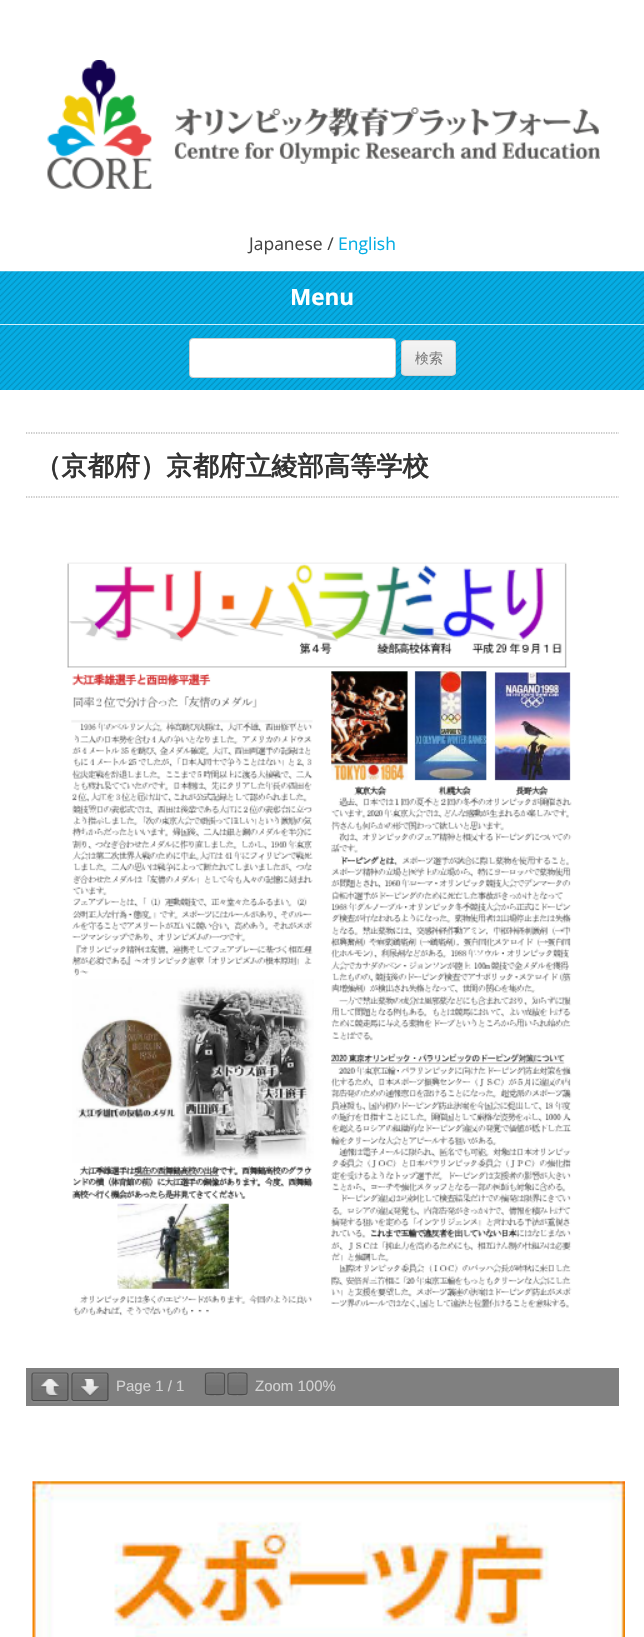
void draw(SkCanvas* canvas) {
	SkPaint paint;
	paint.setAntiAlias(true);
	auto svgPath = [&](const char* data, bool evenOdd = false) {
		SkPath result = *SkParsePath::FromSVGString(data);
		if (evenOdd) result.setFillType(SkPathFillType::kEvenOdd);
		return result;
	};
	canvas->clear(0xffffffff);
	canvas->drawImageRect(SkImages::DeferredFromEncodedData(SkData::MakeFromFileName("img1.png")), SkRect::MakeXYWH(47, 60, 553, 129), SkSamplingOptions());
	SkFont f1(fontMgr->matchFamilyStyle("Open Sans", SkFontStyle::Normal()), 17.5);
	f1.setSubpixel(true);
	paint.setColor(0xff444444);
	canvas->drawString("Japanese /", 249, 250, f1, paint);
	paint.setColor(0xff06ade4);
	canvas->drawString("English", 338, 250, f1, paint);
	canvas->drawImageRect(SkImages::DeferredFromEncodedData(SkData::MakeFromFileName("img2.png")), SkRect::MakeXYWH(0, 271, 644, 119), SkSamplingOptions());
	paint.setColor(0xffd5effa);
	canvas->drawRect(SkRect::MakeXYWH(0, 324, 644, 1), paint);
	SkFont f2(fontMgr->matchFamilyStyle("Open Sans", SkFontStyle::Bold()), 22.5);
	f2.setSubpixel(true);
	paint.setColor(0xffffffff);
	canvas->drawString("Menu", 290, 305, f2, paint);
	canvas->drawRoundRect(SkRect::MakeXYWH(189.5, 338.5, 206, 39), 3.5, 3.5, paint);
	paint.setStroke(true);
	paint.setStrokeWidth(1);
	paint.setColor(0xffcccccc);
	canvas->drawRoundRect(SkRect::MakeXYWH(189.5, 338.5, 206, 39), 3.5, 3.5, paint);
	paint.setStroke(false);
	paint.setColor(0x1a404040);
	paint.setMaskFilter(SkMaskFilter::MakeBlur(kNormal_SkBlurStyle, 1));
	canvas->drawRoundRect(SkRect::MakeXYWH(401, 341, 55, 37), 4, 4, paint);
	paint.setMaskFilter(nullptr);
	canvas->save();
	canvas->clipPath(svgPath("M405 340H452C454 340 456 342 456 344V372C456 374 454 376 452 376H405C403 376 401 374 401 372V344C401 342 403 340 405 340Z"), true);
	{
		const SkColor colors[] = {0xfff4f4f4, 0xffe6e6e6};
		const float stops[] = {0, 1};
		const SkPoint ends[] = {{429, 341}, {429, 375}};
		paint.setShader(SkGradientShader::MakeLinear(ends, colors, stops, 2, SkTileMode::kClamp));
		paint.setAlpha(255);
	}
	canvas->drawRect(SkRect::MakeXYWH(401, 341, 55, 34), paint);
	canvas->restore();
	paint.setStroke(true);
	paint.setShader(nullptr);
	paint.setColor(0xffd2d2d2);
	canvas->drawRoundRect(SkRect::MakeXYWH(401.5, 340.5, 54, 35), 3.5, 3.5, paint);
	SkFont f3(fontMgr->matchFamilyStyle("WenQuanYi Zen Hei", SkFontStyle(500, SkFontStyle::kNormal_Width, SkFontStyle::kUpright_Slant)), 14);
	f3.setSubpixel(true);
	paint.setStroke(false);
	paint.setColor(0xff7c7c7c);
	canvas->drawString("検索", 415, 363, f3, paint);
	paint.setStroke(true);
	paint.setStrokeWidth(1.2);
	paint.setColor(0xff999999);
	paint.setPathEffect(SkDashPathEffect::Make({{1.25f, 1.25f}}, 0));
	canvas->drawPath(svgPath("M26 433H619"), paint);
	paint.setPathEffect(nullptr);
	paint.setPathEffect(SkDashPathEffect::Make({{1.25f, 1.25f}}, 0));
	canvas->drawPath(svgPath("M26 497H619"), paint);
	paint.setPathEffect(nullptr);
	SkFont f4(fontMgr->matchFamilyStyle("WenQuanYi Zen Hei", SkFontStyle::Bold()), 26.25);
	f4.setSubpixel(true);
	paint.setStroke(false);
	paint.setColor(0xff333333);
	canvas->drawString("（京都府）京都府立綾部高等学校", 35, 475, f4, paint);
	canvas->drawImageRect(SkImages::DeferredFromEncodedData(SkData::MakeFromFileName("img3.png")), SkRect::MakeXYWH(67, 562, 505, 754), SkSamplingOptions());
	paint.setColor(0xff808080);
	canvas->drawRect(SkRect::MakeXYWH(26, 1368, 593, 38), paint);
	paint.setColor(0xff868686);
	canvas->drawPath(svgPath("M31 1375.5V1392.5C31 1403 29 1403 39 1403H61C71 1403 69 1403 69 1392.5V1375.5V1399C69 1400 67.5 1401 66 1401H34C32.5 1401 31 1400 31 1399Z"), paint);
	paint.setColor(0xff717171);
	canvas->drawRoundRect(SkRect::MakeXYWH(33, 1374, 35, 26), 1, 1, paint);
	{
		const SkColor colors[] = {0x0dffffff, 0x00ffffff};
		const float stops[] = {0, 1};
		const SkPoint ends[] = {{50, 1374}, {50, 1400}};
		paint.setShader(SkGradientShader::MakeLinear(ends, colors, stops, 2, SkTileMode::kClamp));
		paint.setAlpha(255);
	}
	canvas->drawRect(SkRect::MakeXYWH(33, 1374, 35, 15), paint);
	paint.setShader(nullptr);
	paint.setColor(0xff7f7f7f);
	canvas->drawPath(svgPath("M34 1375H66.5L68 1376V1375C68 1374.5 67.5 1374 67 1374H34C33.5 1374 33 1374.5 33 1375V1375.5Z"), paint);
	paint.setStroke(true);
	paint.setColor(0xff575757);
	canvas->drawPath(svgPath("M32.5 1373.5L33.5 1373H66.5L67.5 1373.5"), paint);
	paint.setColor(0x61000000);
	canvas->drawPath(svgPath("M67.5 1373.5L68 1375V1399L67.5 1400"), paint);
	paint.setColor(0xff4a4a4a);
	canvas->drawPath(svgPath("M67.5 1400L66.5 1400.5H33.5L32.5 1400"), paint);
	paint.setColor(0x61000000);
	canvas->drawPath(svgPath("M32.5 1400L32 1399V1375L32.5 1373.5"), paint);
	canvas->drawImageRect(SkImages::DeferredFromEncodedData(SkData::MakeFromFileName("img4.png")), SkRect::MakeXYWH(41, 1379, 18, 18), SkSamplingOptions());
	paint.setStroke(false);
	paint.setColor(0xff868686);
	canvas->drawPath(svgPath("M71 1375.5V1392.5C71 1403 69 1403 79 1403H101C111 1403 109 1403 109 1392.5V1375.5V1399C109 1400 107.5 1401 106 1401H74C72.5 1401 71 1400 71 1399Z"), paint);
	paint.setColor(0xff717171);
	canvas->drawRoundRect(SkRect::MakeXYWH(73, 1374, 35, 26), 1, 1, paint);
	{
		const SkColor colors[] = {0x0dffffff, 0x00ffffff};
		const float stops[] = {0, 1};
		const SkPoint ends[] = {{90, 1374}, {90, 1400}};
		paint.setShader(SkGradientShader::MakeLinear(ends, colors, stops, 2, SkTileMode::kClamp));
		paint.setAlpha(255);
	}
	canvas->drawRect(SkRect::MakeXYWH(73, 1374, 35, 15), paint);
	paint.setShader(nullptr);
	paint.setColor(0xff7f7f7f);
	canvas->drawPath(svgPath("M74 1375H106.5L108 1376V1375C108 1374.5 107.5 1374 107 1374H74C73.5 1374 73 1374.5 73 1375V1375.5Z"), paint);
	paint.setStroke(true);
	paint.setColor(0xff575757);
	canvas->drawPath(svgPath("M72.5 1373.5L73.5 1373H106.5L107.5 1373.5"), paint);
	paint.setColor(0x61000000);
	canvas->drawPath(svgPath("M107.5 1373.5L108 1375V1399L107.5 1400"), paint);
	paint.setColor(0xff4a4a4a);
	canvas->drawPath(svgPath("M107.5 1400L106.5 1400.5H73.5L72.5 1400"), paint);
	paint.setColor(0x61000000);
	canvas->drawPath(svgPath("M72.5 1400L72 1399V1375L72.5 1373.5"), paint);
	canvas->drawImageRect(SkImages::DeferredFromEncodedData(SkData::MakeFromFileName("img5.png")), SkRect::MakeXYWH(81, 1379, 18, 18), SkSamplingOptions());
	SkFont f5(fontMgr->matchFamilyStyle("Liberation Sans", SkFontStyle::Normal()), 15);
	f5.setSubpixel(true);
	paint.setStroke(false);
	paint.setColor(0xffd3d3d3);
	canvas->drawString("Page 1 / 1", 116, 1391, f5, paint);
	paint.setColor(0xff868686);
	canvas->drawPath(svgPath("M205 1392.5C205 1396 206.5 1396 210 1396H220C223.5 1396 225 1396 225 1392.5C225 1394 224 1395 222.5 1395H207.5C206 1395 205 1394 205 1392.5Z"), paint);
	paint.setColor(0xff717171);
	canvas->drawRoundRect(SkRect::MakeXYWH(206, 1374, 18, 20), 1, 1, paint);
	{
		const SkColor colors[] = {0x0dffffff, 0x00ffffff};
		const float stops[] = {0, 1};
		const SkPoint ends[] = {{215, 1374}, {215, 1394}};
		paint.setShader(SkGradientShader::MakeLinear(ends, colors, stops, 2, SkTileMode::kClamp));
		paint.setAlpha(255);
	}
	canvas->drawRect(SkRect::MakeXYWH(206, 1374, 18, 11), paint);
	paint.setShader(nullptr);
	paint.setColor(0xff7f7f7f);
	canvas->drawPath(svgPath("M207 1374C206.5 1374 206 1374.5 206 1375V1393C206 1393.5 206.5 1394 206.5 1394C206 1390 206 1376 207 1375H223C224 1376 224 1390 223.5 1394C223.5 1394 224 1393.5 224 1393V1375C224 1374.5 223.5 1374 223 1374Z"), paint);
	paint.setStroke(true);
	paint.setColor(0xff575757);
	canvas->drawPath(svgPath("M206 1373.5C207.5 1372.5 213.5 1373 215 1373C216.5 1373 222.5 1372.5 224 1373.5"), paint);
	paint.setColor(0xff4f4f4f);
	canvas->drawPath(svgPath("M224 1373.5L224.5 1375V1392.5L224 1394"), paint);
	paint.setColor(0xff4a4a4a);
	canvas->drawPath(svgPath("M224 1394C222.5 1395 216.5 1394.5 215 1394.5C213.5 1394.5 207.5 1395 206 1394"), paint);
	paint.setColor(0xff4f4f4f);
	canvas->drawPath(svgPath("M206 1394L205.5 1392.5V1375L206 1373.5"), paint);
	paint.setStroke(false);
	paint.setColor(0xff868686);
	canvas->drawPath(svgPath("M228 1394C228.5 1395 229.5 1396 230.5 1396H245.5C247 1396 248 1395 248 1393.5V1376.5L247.5 1375V1392.5C247.5 1394 246.5 1395 245 1395H230C229 1395 228.5 1394.5 228 1394Z"), paint);
	paint.setColor(0xff717171);
	canvas->drawRoundRect(SkRect::MakeXYWH(229, 1374, 17, 20), 1, 1, paint);
	{
		const SkColor colors[] = {0x0dffffff, 0x00ffffff};
		const float stops[] = {0, 1};
		const SkPoint ends[] = {{238, 1374}, {238, 1394}};
		paint.setShader(SkGradientShader::MakeLinear(ends, colors, stops, 2, SkTileMode::kClamp));
		paint.setAlpha(255);
	}
	canvas->drawRect(SkRect::MakeXYWH(229, 1374, 17, 11), paint);
	paint.setShader(nullptr);
	paint.setColor(0xff7f7f7f);
	canvas->drawPath(svgPath("M230 1374C229.5 1374 229 1374.5 229 1375H246C246 1374.5 245.5 1374 245 1374Z"), paint);
	paint.setStroke(true);
	paint.setColor(0xff575757);
	canvas->drawPath(svgPath("M228.5 1373.5C230 1372.5 236 1373 237.5 1373C239 1373 245 1372.5 246.5 1373.5"), paint);
	paint.setColor(0x61000000);
	canvas->drawPath(svgPath("M246.5 1373.5L247 1375V1392.5L246.5 1394"), paint);
	paint.setColor(0xff4a4a4a);
	canvas->drawPath(svgPath("M246.5 1394C245 1395 239 1394.5 237.5 1394.5C236 1394.5 230 1395 228.5 1394"), paint);
	paint.setColor(0x61000000);
	canvas->drawPath(svgPath("M228.5 1394L228 1392.5V1375L228.5 1373.5"), paint);
	paint.setStroke(false);
	paint.setColor(0xffd3d3d3);
	canvas->drawString("Zoom 100%", 255, 1391, f5, paint);
	canvas->drawImageRect(SkImages::DeferredFromEncodedData(SkData::MakeFromFileName("img6.png")), SkRect::MakeXYWH(32, 1481, 593, 156), SkSamplingOptions());
}
